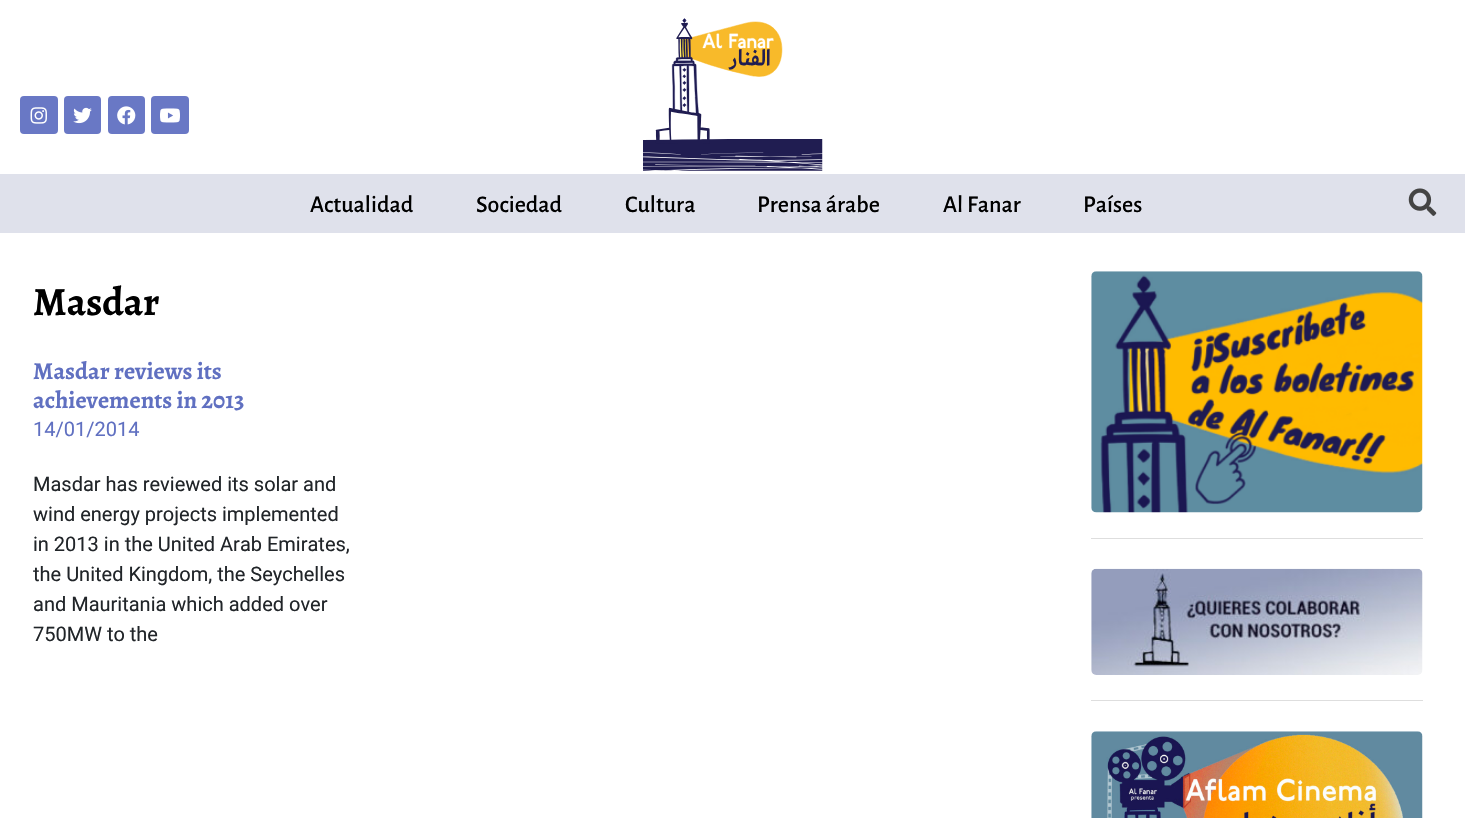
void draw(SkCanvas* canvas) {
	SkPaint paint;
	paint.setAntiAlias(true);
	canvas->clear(0xffffffff);
	paint.setColor(0xff6978c5);
	canvas->drawRoundRect(SkRect::MakeXYWH(20, 96, 38, 38), 4, 4, paint);
	canvas->drawImageRect(SkImages::DeferredFromEncodedData(SkData::MakeFromFileName("img1.png")), SkRect::MakeXYWH(30, 107, 17, 17), SkSamplingOptions());
	canvas->drawRoundRect(SkRect::MakeXYWH(64, 96, 37, 38), 4, 4, paint);
	canvas->drawImageRect(SkImages::DeferredFromEncodedData(SkData::MakeFromFileName("img2.png")), SkRect::MakeXYWH(73, 107, 19, 17), SkSamplingOptions());
	canvas->drawRoundRect(SkRect::MakeXYWH(108, 96, 37, 38), 4, 4, paint);
	canvas->drawImageRect(SkImages::DeferredFromEncodedData(SkData::MakeFromFileName("img3.png")), SkRect::MakeXYWH(117, 106, 19, 19), SkSamplingOptions());
	canvas->drawRoundRect(SkRect::MakeXYWH(151, 96, 38, 38), 4, 4, paint);
	canvas->drawImageRect(SkImages::DeferredFromEncodedData(SkData::MakeFromFileName("img4.png")), SkRect::MakeXYWH(160, 108, 20, 15), SkSamplingOptions());
	canvas->drawImageRect(SkImages::DeferredFromEncodedData(SkData::MakeFromFileName("img5.png")), SkRect::MakeXYWH(643, 18, 180, 153), SkSamplingOptions());
	paint.setColor(0xffdfe1eb);
	canvas->drawRect(SkRect::MakeXYWH(0, 174, 1465, 59), paint);
	SkFont f1(fontMgr->matchFamilyStyle("Alegreya Sans", SkFontStyle(500, SkFontStyle::kNormal_Width, SkFontStyle::kUpright_Slant)), 24);
	f1.setSubpixel(true);
	paint.setColor(0xff000000);
	canvas->drawString("Actualidad", 310, 212, f1, paint);
	canvas->drawString("Sociedad", 476, 212, f1, paint);
	canvas->drawString("Cultura", 625, 212, f1, paint);
	canvas->drawString("Prensa árabe", 757, 212, f1, paint);
	canvas->drawString("Al Fanar", 943, 212, f1, paint);
	canvas->drawString("Países", 1083, 212, f1, paint);
	canvas->drawImageRect(SkImages::DeferredFromEncodedData(SkData::MakeFromFileName("img6.png")), SkRect::MakeXYWH(1408, 188, 29, 28), SkSamplingOptions());
	SkFont f2(fontMgr->matchFamilyStyle("Alegreya", SkFontStyle::Bold()), 40);
	f2.setSubpixel(true);
	canvas->drawString("Masdar", 33, 315, f2, paint);
	SkFont f3(fontMgr->matchFamilyStyle("Alegreya", SkFontStyle::Bold()), 24.25);
	f3.setSubpixel(true);
	paint.setColor(0xff6070c1);
	canvas->drawString("Masdar reviews its", 33, 379, f3, paint);
	canvas->drawString("achievements in 2013", 33, 408, f3, paint);
	SkFont f4(fontMgr->matchFamilyStyle("Roboto", SkFontStyle::Normal()), 20);
	f4.setSubpixel(true);
	canvas->drawString("14/01/2014", 33, 436, f4, paint);
	paint.setColor(0xff212529);
	canvas->drawString("Masdar has reviewed its solar and", 33, 491, f4, paint);
	canvas->drawString("wind energy projects implemented", 33, 521, f4, paint);
	canvas->drawString("in 2013 in the United Arab Emirates,", 33, 551, f4, paint);
	canvas->drawString("the United Kingdom, the Seychelles", 33, 581, f4, paint);
	canvas->drawString("and Mauritania which added over", 33, 611, f4, paint);
	canvas->drawString("750MW to the", 33, 641, f4, paint);
	paint.setColor(0xffdedede);
	canvas->drawRect(SkRect::MakeXYWH(1091, 538, 332, 1), paint);
	canvas->drawImageRect(SkImages::DeferredFromEncodedData(SkData::MakeFromFileName("img7.png")), SkRect::MakeXYWH(1091, 271, 332, 242), SkSamplingOptions());
	canvas->drawRect(SkRect::MakeXYWH(1091, 700, 332, 1), paint);
	canvas->drawImageRect(SkImages::DeferredFromEncodedData(SkData::MakeFromFileName("img8.png")), SkRect::MakeXYWH(1091, 568, 332, 107), SkSamplingOptions());
	canvas->drawImageRect(SkImages::DeferredFromEncodedData(SkData::MakeFromFileName("img9.png")), SkRect::MakeXYWH(1091, 731, 332, 87), SkSamplingOptions());
}
